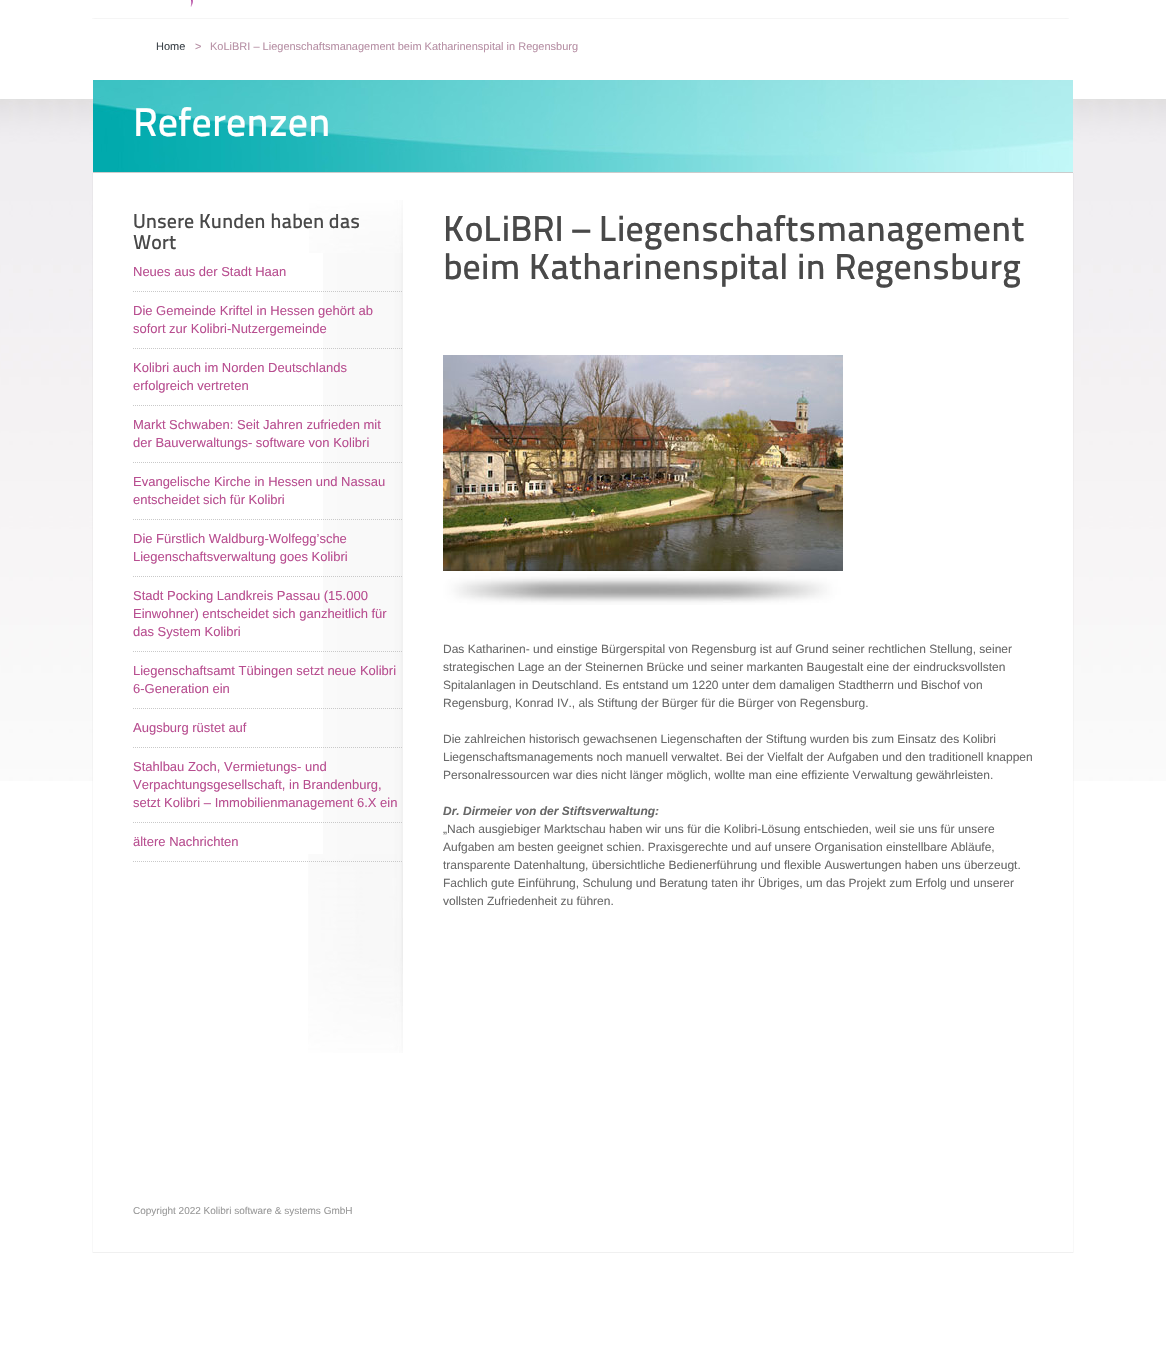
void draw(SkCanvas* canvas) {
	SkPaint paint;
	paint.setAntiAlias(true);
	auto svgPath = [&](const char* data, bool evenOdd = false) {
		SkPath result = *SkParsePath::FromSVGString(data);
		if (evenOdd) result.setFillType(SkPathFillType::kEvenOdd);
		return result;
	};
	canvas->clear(0xffffffff);
	canvas->drawImageRect(SkImages::DeferredFromEncodedData(SkData::MakeFromFileName("img1.png")), SkRect::MakeXYWH(0, 99, 1166, 682), SkSamplingOptions());
	canvas->drawImageRect(SkImages::DeferredFromEncodedData(SkData::MakeFromFileName("img2.png")), SkRect::MakeXYWH(92, 18, 977, 1), SkSamplingOptions());
	canvas->drawImageRect(SkImages::DeferredFromEncodedData(SkData::MakeFromFileName("img3.png")), SkRect::MakeXYWH(190, 0, 3, 7), SkSamplingOptions());
	SkFont f1(fontMgr->matchFamilyStyle("Liberation Sans", SkFontStyle::Normal()), 11);
	f1.setSubpixel(true);
	paint.setColor(0xff3c4349);
	canvas->drawString("Home", 156, 50, f1, paint);
	paint.setColor(0xffb790a5);
	canvas->drawString(">", 195, 50, f1, paint);
	canvas->drawString("KoLiBRI – Liegenschaftsmanagement beim Katharinenspital in Regensburg", 210, 50, f1, paint);
	canvas->drawImageRect(SkImages::DeferredFromEncodedData(SkData::MakeFromFileName("img4.png")), SkRect::MakeXYWH(93, 80, 980, 92), SkSamplingOptions());
	paint.setColor(0xffcccccc);
	canvas->drawRect(SkRect::MakeXYWH(93, 172, 980, 1), paint);
	SkFont f2(fontMgr->matchFamilyStyle("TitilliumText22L", SkFontStyle(500, SkFontStyle::kNormal_Width, SkFontStyle::kUpright_Slant)), 40);
	f2.setSubpixel(true);
	paint.setColor(0xffffffff);
	canvas->drawString("Referenzen", 133, 136, f2, paint);
	canvas->drawImageRect(SkImages::DeferredFromEncodedData(SkData::MakeFromFileName("img5.png")), SkRect::MakeXYWH(92, 173, 982, 999), SkSamplingOptions());
	canvas->drawImageRect(SkImages::DeferredFromEncodedData(SkData::MakeFromFileName("img6.png")), SkRect::MakeXYWH(308, 854, 95, 199), SkSamplingOptions());
	canvas->drawImageRect(SkImages::DeferredFromEncodedData(SkData::MakeFromFileName("img7.png")), SkRect::MakeXYWH(309, 200, 94, 53), SkSamplingOptions());
	SkFont f3(fontMgr->matchFamilyStyle("TitilliumText22L", SkFontStyle(500, SkFontStyle::kNormal_Width, SkFontStyle::kUpright_Slant)), 20);
	f3.setSubpixel(true);
	paint.setColor(0xff494949);
	canvas->drawString("Unsere Kunden haben das", 133, 228, f3, paint);
	canvas->drawString("Wort", 133, 249, f3, paint);
	canvas->drawImageRect(SkImages::DeferredFromEncodedData(SkData::MakeFromFileName("img8.png")), SkRect::MakeXYWH(323, 253, 79, 39), SkSamplingOptions());
	paint.setColor(0xfff1f1f1);
	canvas->drawRect(SkRect::MakeXYWH(402, 253, 1, 609), paint);
	paint.setStroke(true);
	paint.setStrokeWidth(1);
	paint.setColor(0xffc9c9c9);
	paint.setPathEffect(SkDashPathEffect::Make({{1, 1}}, 0));
	canvas->drawPath(svgPath("M133 291.5H403"), paint);
	paint.setPathEffect(nullptr);
	SkFont f4(fontMgr->matchFamilyStyle("Liberation Sans", SkFontStyle::Normal()), 13);
	f4.setSubpixel(true);
	paint.setStroke(false);
	paint.setColor(0xffb84e90);
	canvas->drawString("Neues aus der Stadt Haan", 133, 276, f4, paint);
	canvas->drawImageRect(SkImages::DeferredFromEncodedData(SkData::MakeFromFileName("img9.png")), SkRect::MakeXYWH(323, 292, 79, 57), SkSamplingOptions());
	paint.setStroke(true);
	paint.setColor(0xffc9c9c9);
	paint.setPathEffect(SkDashPathEffect::Make({{1, 1}}, 0));
	canvas->drawPath(svgPath("M133 348.5H403"), paint);
	paint.setPathEffect(nullptr);
	paint.setStroke(false);
	paint.setColor(0xffb84e90);
	canvas->drawString("Die Gemeinde Kriftel in Hessen gehört ab", 133, 315, f4, paint);
	canvas->drawString("sofort zur Kolibri-Nutzergemeinde", 133, 333, f4, paint);
	canvas->drawImageRect(SkImages::DeferredFromEncodedData(SkData::MakeFromFileName("img9.png")), SkRect::MakeXYWH(323, 349, 79, 57), SkSamplingOptions());
	paint.setStroke(true);
	paint.setColor(0xffc9c9c9);
	paint.setPathEffect(SkDashPathEffect::Make({{1, 1}}, 0));
	canvas->drawPath(svgPath("M133 405.5H403"), paint);
	paint.setPathEffect(nullptr);
	paint.setStroke(false);
	paint.setColor(0xffb84e90);
	canvas->drawString("Kolibri auch im Norden Deutschlands", 133, 372, f4, paint);
	canvas->drawString("erfolgreich vertreten", 133, 390, f4, paint);
	canvas->drawImageRect(SkImages::DeferredFromEncodedData(SkData::MakeFromFileName("img9.png")), SkRect::MakeXYWH(323, 406, 79, 57), SkSamplingOptions());
	paint.setStroke(true);
	paint.setColor(0xffc9c9c9);
	paint.setPathEffect(SkDashPathEffect::Make({{1, 1}}, 0));
	canvas->drawPath(svgPath("M133 462.5H403"), paint);
	paint.setPathEffect(nullptr);
	paint.setStroke(false);
	paint.setColor(0xffb84e90);
	canvas->drawString("Markt Schwaben: Seit Jahren zufrieden mit", 133, 429, f4, paint);
	canvas->drawString("der Bauverwaltungs- software von Kolibri", 133, 447, f4, paint);
	canvas->drawImageRect(SkImages::DeferredFromEncodedData(SkData::MakeFromFileName("img9.png")), SkRect::MakeXYWH(323, 463, 79, 57), SkSamplingOptions());
	paint.setStroke(true);
	paint.setColor(0xffc9c9c9);
	paint.setPathEffect(SkDashPathEffect::Make({{1, 1}}, 0));
	canvas->drawPath(svgPath("M133 519.5H403"), paint);
	paint.setPathEffect(nullptr);
	paint.setStroke(false);
	paint.setColor(0xffb84e90);
	canvas->drawString("Evangelische Kirche in Hessen und Nassau", 133, 486, f4, paint);
	canvas->drawString("entscheidet sich für Kolibri", 133, 504, f4, paint);
	canvas->drawImageRect(SkImages::DeferredFromEncodedData(SkData::MakeFromFileName("img9.png")), SkRect::MakeXYWH(323, 520, 79, 57), SkSamplingOptions());
	paint.setStroke(true);
	paint.setColor(0xffc9c9c9);
	paint.setPathEffect(SkDashPathEffect::Make({{1, 1}}, 0));
	canvas->drawPath(svgPath("M133 576.5H403"), paint);
	paint.setPathEffect(nullptr);
	paint.setStroke(false);
	paint.setColor(0xffb84e90);
	canvas->drawString("Die Fürstlich Waldburg-Wolfegg’sche", 133, 543, f4, paint);
	canvas->drawString("Liegenschaftsverwaltung goes Kolibri", 133, 561, f4, paint);
	canvas->drawImageRect(SkImages::DeferredFromEncodedData(SkData::MakeFromFileName("img10.png")), SkRect::MakeXYWH(323, 577, 79, 75), SkSamplingOptions());
	paint.setStroke(true);
	paint.setColor(0xffc9c9c9);
	paint.setPathEffect(SkDashPathEffect::Make({{1, 1}}, 0));
	canvas->drawPath(svgPath("M133 651.5H403"), paint);
	paint.setPathEffect(nullptr);
	paint.setStroke(false);
	paint.setColor(0xffb84e90);
	canvas->drawString("Stadt Pocking Landkreis Passau (15.000", 133, 600, f4, paint);
	canvas->drawString("Einwohner) entscheidet sich ganzheitlich für", 133, 618, f4, paint);
	canvas->drawString("das System Kolibri", 133, 636, f4, paint);
	canvas->drawImageRect(SkImages::DeferredFromEncodedData(SkData::MakeFromFileName("img9.png")), SkRect::MakeXYWH(323, 652, 79, 57), SkSamplingOptions());
	paint.setStroke(true);
	paint.setColor(0xffc9c9c9);
	paint.setPathEffect(SkDashPathEffect::Make({{1, 1}}, 0));
	canvas->drawPath(svgPath("M133 708.5H403"), paint);
	paint.setPathEffect(nullptr);
	paint.setStroke(false);
	paint.setColor(0xffb84e90);
	canvas->drawString("Liegenschaftsamt Tübingen setzt neue Kolibri", 133, 675, f4, paint);
	canvas->drawString("6-Generation ein", 133, 693, f4, paint);
	canvas->drawImageRect(SkImages::DeferredFromEncodedData(SkData::MakeFromFileName("img8.png")), SkRect::MakeXYWH(323, 709, 79, 39), SkSamplingOptions());
	paint.setStroke(true);
	paint.setColor(0xffc9c9c9);
	paint.setPathEffect(SkDashPathEffect::Make({{1, 1}}, 0));
	canvas->drawPath(svgPath("M133 747.5H403"), paint);
	paint.setPathEffect(nullptr);
	paint.setStroke(false);
	paint.setColor(0xffb84e90);
	canvas->drawString("Augsburg rüstet auf", 133, 732, f4, paint);
	canvas->drawImageRect(SkImages::DeferredFromEncodedData(SkData::MakeFromFileName("img10.png")), SkRect::MakeXYWH(323, 748, 79, 75), SkSamplingOptions());
	paint.setStroke(true);
	paint.setColor(0xffc9c9c9);
	paint.setPathEffect(SkDashPathEffect::Make({{1, 1}}, 0));
	canvas->drawPath(svgPath("M133 822.5H403"), paint);
	paint.setPathEffect(nullptr);
	paint.setStroke(false);
	paint.setColor(0xffb84e90);
	canvas->drawString("Stahlbau Zoch, Vermietungs- und", 133, 771, f4, paint);
	canvas->drawString("Verpachtungsgesellschaft, in Brandenburg,", 133, 789, f4, paint);
	canvas->drawString("setzt Kolibri – Immobilienmanagement 6.X ein", 133, 807, f4, paint);
	canvas->drawImageRect(SkImages::DeferredFromEncodedData(SkData::MakeFromFileName("img11.png")), SkRect::MakeXYWH(323, 823, 79, 31), SkSamplingOptions());
	paint.setStroke(true);
	paint.setColor(0xffc9c9c9);
	paint.setPathEffect(SkDashPathEffect::Make({{1, 1}}, 0));
	canvas->drawPath(svgPath("M133 861.5H403"), paint);
	paint.setPathEffect(nullptr);
	paint.setStroke(false);
	paint.setColor(0xffb84e90);
	canvas->drawString("ältere Nachrichten", 133, 846, f4, paint);
	SkFont f5(fontMgr->matchFamilyStyle("TitilliumText22L", SkFontStyle(500, SkFontStyle::kNormal_Width, SkFontStyle::kUpright_Slant)), 36);
	f5.setSubpixel(true);
	paint.setColor(0xff494949);
	canvas->drawString("KoLiBRI – Liegenschaftsmanagement", 443, 241, f5, paint);
	canvas->drawString("beim Katharinenspital in Regensburg", 443, 279, f5, paint);
	canvas->drawImageRect(SkImages::DeferredFromEncodedData(SkData::MakeFromFileName("img12.png")), SkRect::MakeXYWH(443, 355, 400, 250), SkSamplingOptions());
	SkFont f6(fontMgr->matchFamilyStyle("Liberation Sans", SkFontStyle::Normal()), 12);
	f6.setSubpixel(true);
	paint.setColor(0xff696969);
	canvas->drawString("Das Katharinen- und einstige Bürgerspital von Regensburg ist auf Grund seiner rechtlichen Stellung, seiner", 443, 653, f6, paint);
	canvas->drawString("strategischen Lage an der Steinernen Brücke und seiner markanten Baugestalt eine der eindrucksvollsten", 443, 671, f6, paint);
	canvas->drawString("Spitalanlagen in Deutschland. Es entstand um 1220 unter dem damaligen Stadtherrn und Bischof von", 443, 689, f6, paint);
	canvas->drawString("Regensburg, Konrad IV., als Stiftung der Bürger für die Bürger von Regensburg.", 443, 707, f6, paint);
	canvas->drawString("Die zahlreichen historisch gewachsenen Liegenschaften der Stiftung wurden bis zum Einsatz des Kolibri", 443, 743, f6, paint);
	canvas->drawString("Liegenschaftsmanagements noch manuell verwaltet. Bei der Vielfalt der Aufgaben und den traditionell knappen", 443, 761, f6, paint);
	canvas->drawString("Personalressourcen war dies nicht länger möglich, wollte man eine effiziente Verwaltung gewährleisten.", 443, 779, f6, paint);
	SkFont f7(fontMgr->matchFamilyStyle("Liberation Sans", SkFontStyle::BoldItalic()), 12);
	f7.setSubpixel(true);
	canvas->drawString("Dr. Dirmeier von der Stiftsverwaltung:", 443, 815, f7, paint);
	canvas->drawString("„Nach ausgiebiger Marktschau haben wir uns für die Kolibri-Lösung entschieden, weil sie uns für unsere", 443, 833, f6, paint);
	canvas->drawString("Aufgaben am besten geeignet schien. Praxisgerechte und auf unsere Organisation einstellbare Abläufe,", 443, 851, f6, paint);
	canvas->drawString("transparente Datenhaltung, übersichtliche Bedienerführung und flexible Auswertungen haben uns überzeugt.", 443, 869, f6, paint);
	canvas->drawString("Fachlich gute Einführung, Schulung und Beratung taten ihr Übriges, um das Projekt zum Erfolg und unserer", 443, 887, f6, paint);
	canvas->drawString("vollsten Zufriedenheit zu führen.", 443, 905, f6, paint);
	canvas->drawImageRect(SkImages::DeferredFromEncodedData(SkData::MakeFromFileName("img13.png")), SkRect::MakeXYWH(92, 1172, 982, 81), SkSamplingOptions());
	paint.setColor(0xfff0f0f0);
	canvas->drawRect(SkRect::MakeXYWH(93, 1252, 980, 1), paint);
	SkFont f8(fontMgr->matchFamilyStyle("Liberation Sans", SkFontStyle::Normal()), 10);
	f8.setSubpixel(true);
	paint.setColor(0xff999999);
	canvas->drawString("Copyright 2022 Kolibri software & systems GmbH", 133, 1214, f8, paint);
}
